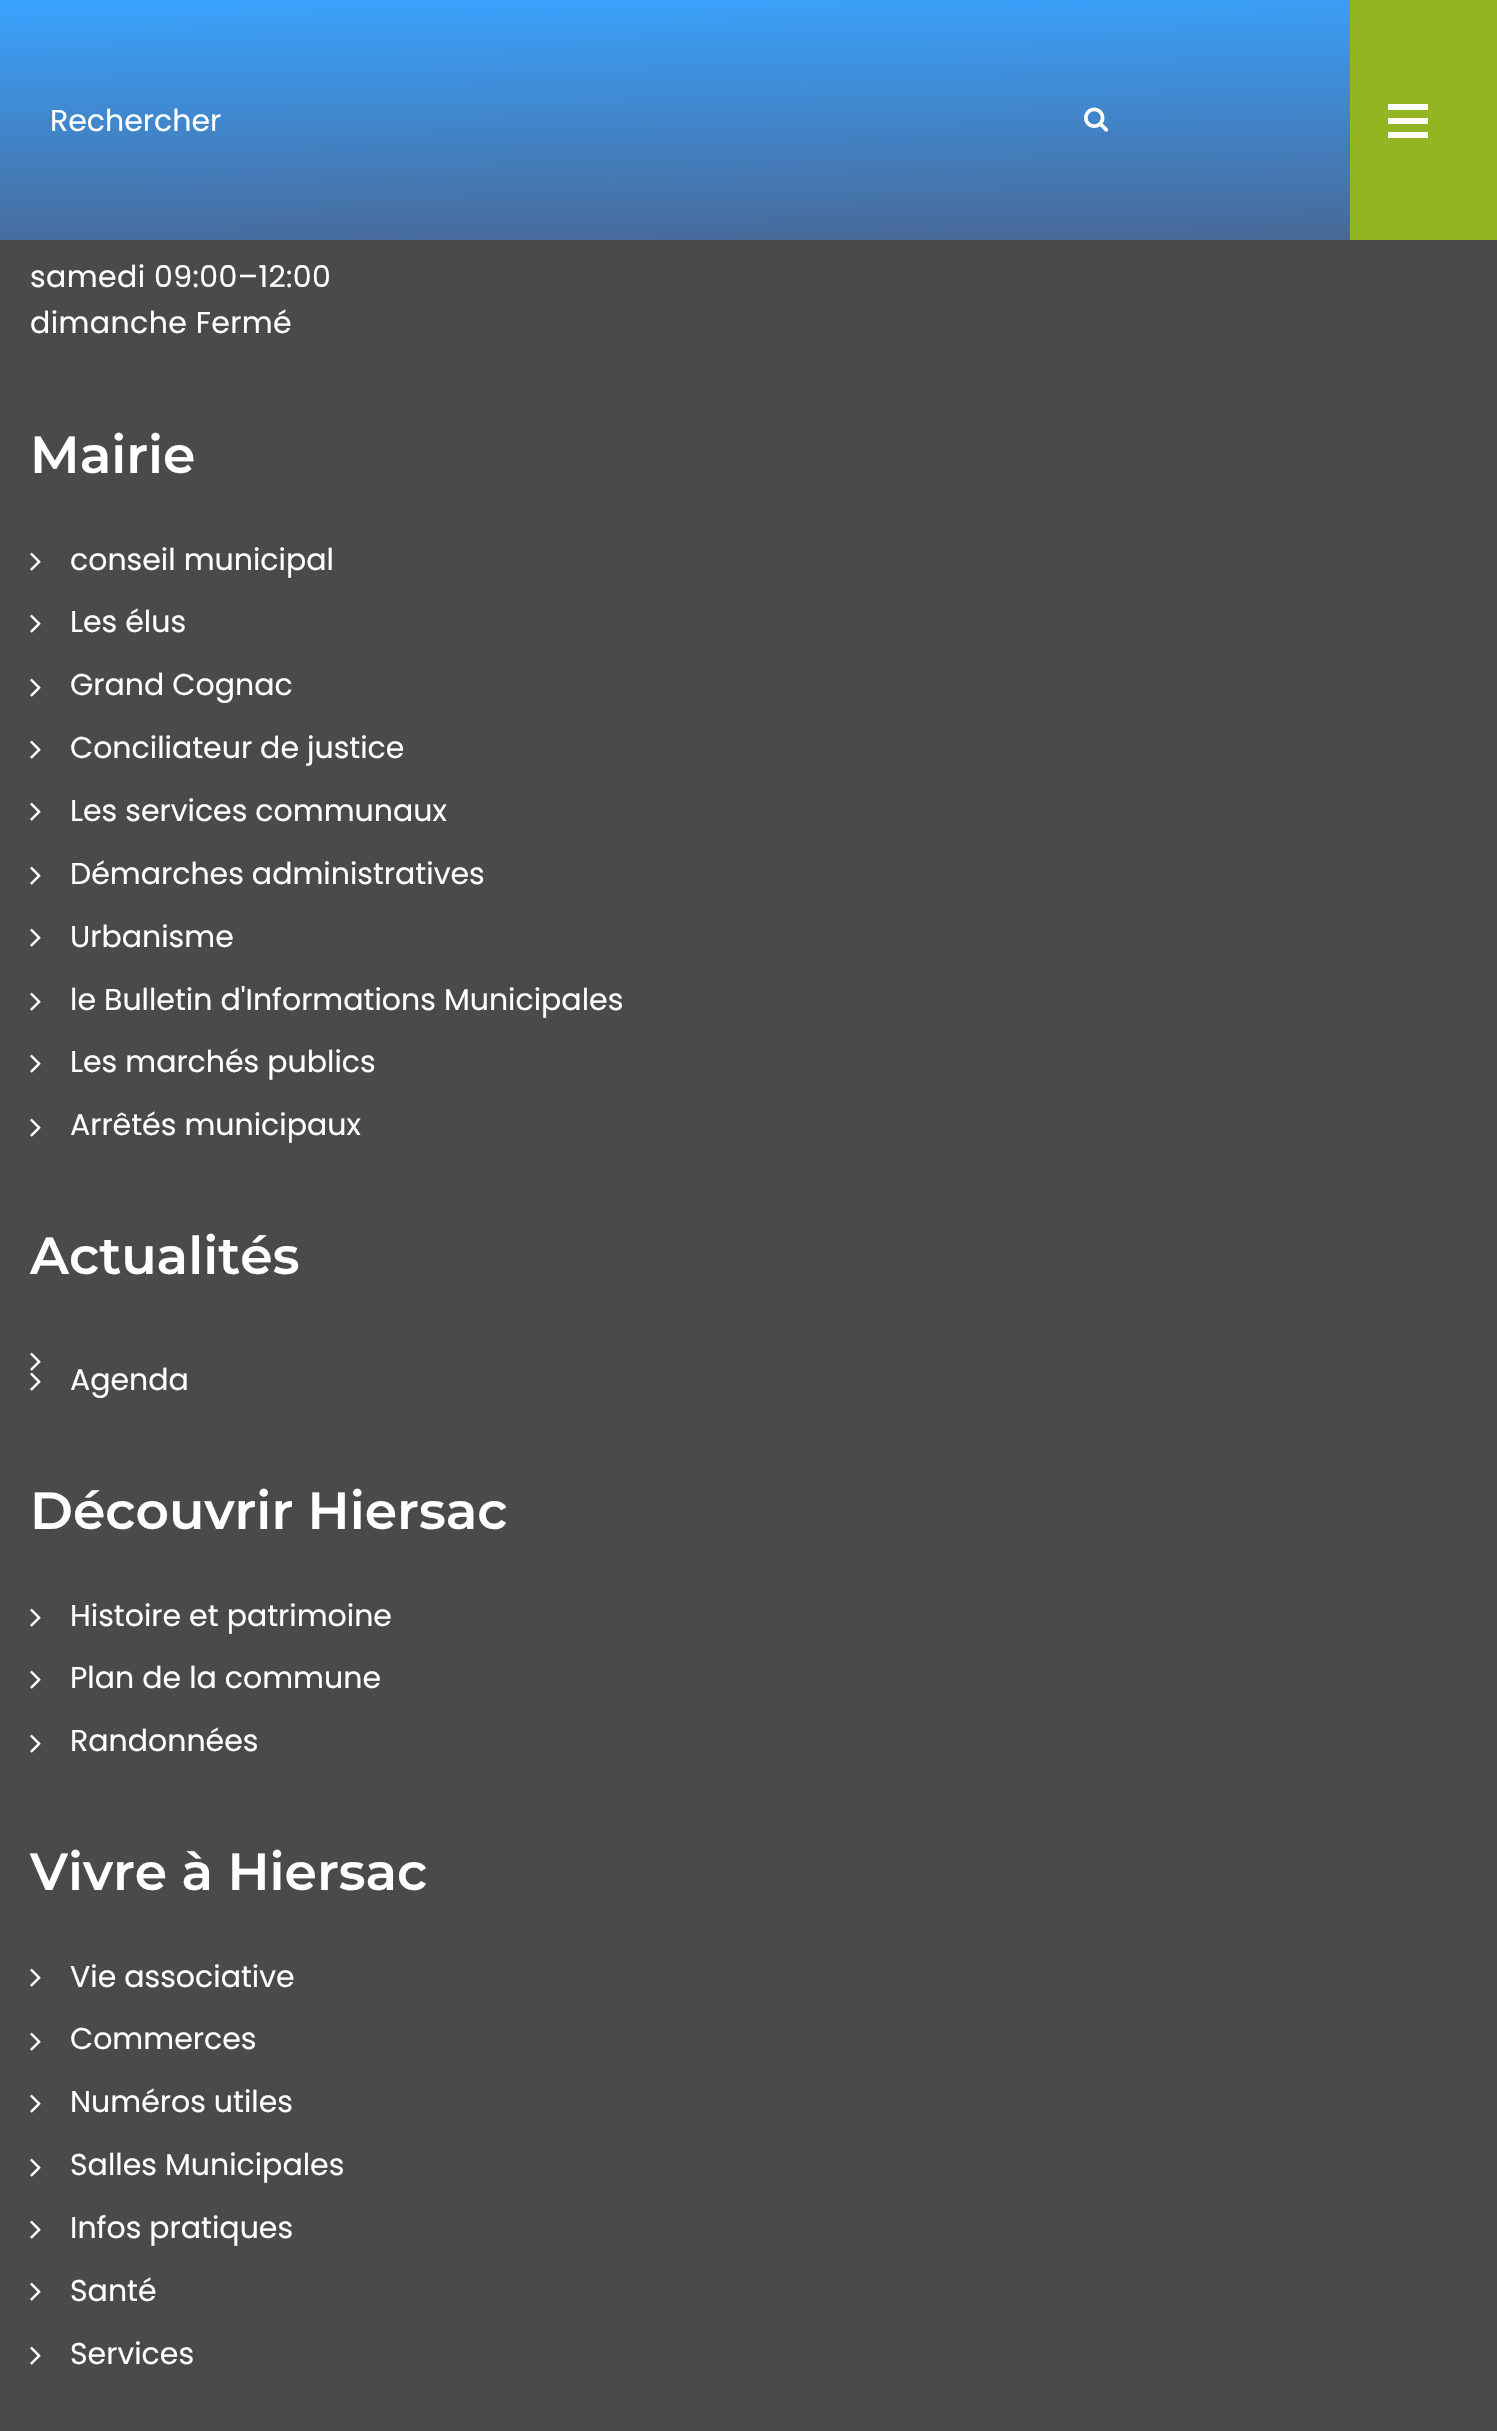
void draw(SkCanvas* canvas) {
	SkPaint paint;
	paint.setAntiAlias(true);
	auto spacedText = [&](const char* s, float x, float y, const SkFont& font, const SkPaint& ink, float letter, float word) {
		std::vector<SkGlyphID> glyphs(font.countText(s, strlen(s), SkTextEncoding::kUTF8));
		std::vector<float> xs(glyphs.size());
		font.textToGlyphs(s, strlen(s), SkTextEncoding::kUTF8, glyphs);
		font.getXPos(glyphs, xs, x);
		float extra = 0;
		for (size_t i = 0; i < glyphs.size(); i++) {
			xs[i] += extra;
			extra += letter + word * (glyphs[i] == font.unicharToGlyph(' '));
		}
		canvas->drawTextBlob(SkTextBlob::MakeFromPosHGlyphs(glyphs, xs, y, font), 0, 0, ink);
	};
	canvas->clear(0xff4a4a4a);
	{
		const SkColor colors[] = {0xff39a3ff, 0xff496795};
		const float stops[] = {0, 1};
		const SkPoint ends[] = {{747, -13}, {751, 253}};
		paint.setShader(SkGradientShader::MakeLinear(ends, colors, stops, 2, SkTileMode::kClamp));
		paint.setAlpha(255);
	}
	canvas->drawRect(SkRect::MakeXYWH(0, 0, 1350, 240), paint);
	SkFont f1(fontMgr->matchFamilyStyle("Poppins", SkFontStyle::Normal()), 30);
	f1.setSubpixel(true);
	paint.setShader(nullptr);
	paint.setColor(0xffffffff);
	canvas->drawString("Rechercher", 50, 131, f1, paint);
	canvas->drawImageRect(SkImages::DeferredFromEncodedData(SkData::MakeFromFileName("img1.png")), SkRect::MakeXYWH(1084, 107, 25, 25), SkSamplingOptions());
	paint.setColor(0xff93b522);
	canvas->drawRect(SkRect::MakeXYWH(1350, 0, 147, 240), paint);
	paint.setColor(0xffffffff);
	canvas->drawRect(SkRect::MakeXYWH(1388, 132, 40, 6), paint);
	canvas->drawRect(SkRect::MakeXYWH(1388, 118, 40, 6), paint);
	canvas->drawRect(SkRect::MakeXYWH(1388, 104, 40, 6), paint);
	spacedText("samedi 09:00–12:00", 30, 287, f1, paint, 0.4, 0);
	spacedText("dimanche Fermé", 30, 333, f1, paint, 0.4, 0);
	SkFont f2(fontMgr->matchFamilyStyle("Montserrat", SkFontStyle(600, SkFontStyle::kNormal_Width, SkFontStyle::kUpright_Slant)), 52);
	f2.setSubpixel(true);
	canvas->drawString("Mairie", 30, 473, f2, paint);
	canvas->drawImageRect(SkImages::DeferredFromEncodedData(SkData::MakeFromFileName("img2.png")), SkRect::MakeXYWH(30, 552, 11, 19), SkSamplingOptions());
	canvas->drawString("conseil municipal", 70, 570, f1, paint);
	canvas->drawImageRect(SkImages::DeferredFromEncodedData(SkData::MakeFromFileName("img2.png")), SkRect::MakeXYWH(30, 614, 11, 19), SkSamplingOptions());
	canvas->drawString("Les élus", 70, 632, f1, paint);
	canvas->drawImageRect(SkImages::DeferredFromEncodedData(SkData::MakeFromFileName("img2.png")), SkRect::MakeXYWH(30, 678, 11, 19), SkSamplingOptions());
	canvas->drawString("Grand Cognac", 70, 695, f1, paint);
	canvas->drawImageRect(SkImages::DeferredFromEncodedData(SkData::MakeFromFileName("img2.png")), SkRect::MakeXYWH(30, 740, 11, 19), SkSamplingOptions());
	canvas->drawString("Conciliateur de justice", 70, 758, f1, paint);
	canvas->drawImageRect(SkImages::DeferredFromEncodedData(SkData::MakeFromFileName("img2.png")), SkRect::MakeXYWH(30, 802, 11, 19), SkSamplingOptions());
	canvas->drawString("Les services communaux", 70, 821, f1, paint);
	canvas->drawImageRect(SkImages::DeferredFromEncodedData(SkData::MakeFromFileName("img2.png")), SkRect::MakeXYWH(30, 866, 11, 19), SkSamplingOptions());
	canvas->drawString("Démarches administratives", 70, 884, f1, paint);
	canvas->drawImageRect(SkImages::DeferredFromEncodedData(SkData::MakeFromFileName("img2.png")), SkRect::MakeXYWH(30, 928, 11, 19), SkSamplingOptions());
	canvas->drawString("Urbanisme", 70, 947, f1, paint);
	canvas->drawImageRect(SkImages::DeferredFromEncodedData(SkData::MakeFromFileName("img2.png")), SkRect::MakeXYWH(30, 992, 11, 19), SkSamplingOptions());
	canvas->drawString("le Bulletin d'Informations Municipales", 70, 1010, f1, paint);
	canvas->drawImageRect(SkImages::DeferredFromEncodedData(SkData::MakeFromFileName("img2.png")), SkRect::MakeXYWH(30, 1054, 11, 19), SkSamplingOptions());
	canvas->drawString("Les marchés publics", 70, 1072, f1, paint);
	canvas->drawImageRect(SkImages::DeferredFromEncodedData(SkData::MakeFromFileName("img2.png")), SkRect::MakeXYWH(30, 1118, 11, 19), SkSamplingOptions());
	canvas->drawString("Arrêtés municipaux", 70, 1135, f1, paint);
	canvas->drawString("Actualités", 30, 1274, f2, paint);
	canvas->drawImageRect(SkImages::DeferredFromEncodedData(SkData::MakeFromFileName("img2.png")), SkRect::MakeXYWH(30, 1352, 11, 19), SkSamplingOptions());
	canvas->drawImageRect(SkImages::DeferredFromEncodedData(SkData::MakeFromFileName("img2.png")), SkRect::MakeXYWH(30, 1372, 11, 19), SkSamplingOptions());
	canvas->drawString("Agenda", 70, 1390, f1, paint);
	canvas->drawString("Découvrir Hiersac", 30, 1529, f2, paint);
	canvas->drawImageRect(SkImages::DeferredFromEncodedData(SkData::MakeFromFileName("img2.png")), SkRect::MakeXYWH(30, 1608, 11, 19), SkSamplingOptions());
	canvas->drawString("Histoire et patrimoine", 70, 1626, f1, paint);
	canvas->drawImageRect(SkImages::DeferredFromEncodedData(SkData::MakeFromFileName("img2.png")), SkRect::MakeXYWH(30, 1670, 11, 19), SkSamplingOptions());
	canvas->drawString("Plan de la commune", 70, 1688, f1, paint);
	canvas->drawImageRect(SkImages::DeferredFromEncodedData(SkData::MakeFromFileName("img2.png")), SkRect::MakeXYWH(30, 1734, 11, 19), SkSamplingOptions());
	canvas->drawString("Randonnées", 70, 1751, f1, paint);
	canvas->drawString("Vivre à Hiersac", 30, 1890, f2, paint);
	canvas->drawImageRect(SkImages::DeferredFromEncodedData(SkData::MakeFromFileName("img2.png")), SkRect::MakeXYWH(30, 1968, 11, 19), SkSamplingOptions());
	canvas->drawString("Vie associative", 70, 1987, f1, paint);
	canvas->drawImageRect(SkImages::DeferredFromEncodedData(SkData::MakeFromFileName("img2.png")), SkRect::MakeXYWH(30, 2032, 11, 19), SkSamplingOptions());
	canvas->drawString("Commerces", 70, 2049, f1, paint);
	canvas->drawImageRect(SkImages::DeferredFromEncodedData(SkData::MakeFromFileName("img2.png")), SkRect::MakeXYWH(30, 2094, 11, 19), SkSamplingOptions());
	canvas->drawString("Numéros utiles", 70, 2112, f1, paint);
	canvas->drawImageRect(SkImages::DeferredFromEncodedData(SkData::MakeFromFileName("img2.png")), SkRect::MakeXYWH(30, 2158, 11, 19), SkSamplingOptions());
	canvas->drawString("Salles Municipales", 70, 2175, f1, paint);
	canvas->drawImageRect(SkImages::DeferredFromEncodedData(SkData::MakeFromFileName("img2.png")), SkRect::MakeXYWH(30, 2220, 11, 19), SkSamplingOptions());
	canvas->drawString("Infos pratiques", 70, 2238, f1, paint);
	canvas->drawImageRect(SkImages::DeferredFromEncodedData(SkData::MakeFromFileName("img2.png")), SkRect::MakeXYWH(30, 2282, 11, 19), SkSamplingOptions());
	canvas->drawString("Santé", 70, 2301, f1, paint);
	canvas->drawImageRect(SkImages::DeferredFromEncodedData(SkData::MakeFromFileName("img2.png")), SkRect::MakeXYWH(30, 2346, 11, 19), SkSamplingOptions());
	canvas->drawString("Services", 70, 2364, f1, paint);
}
